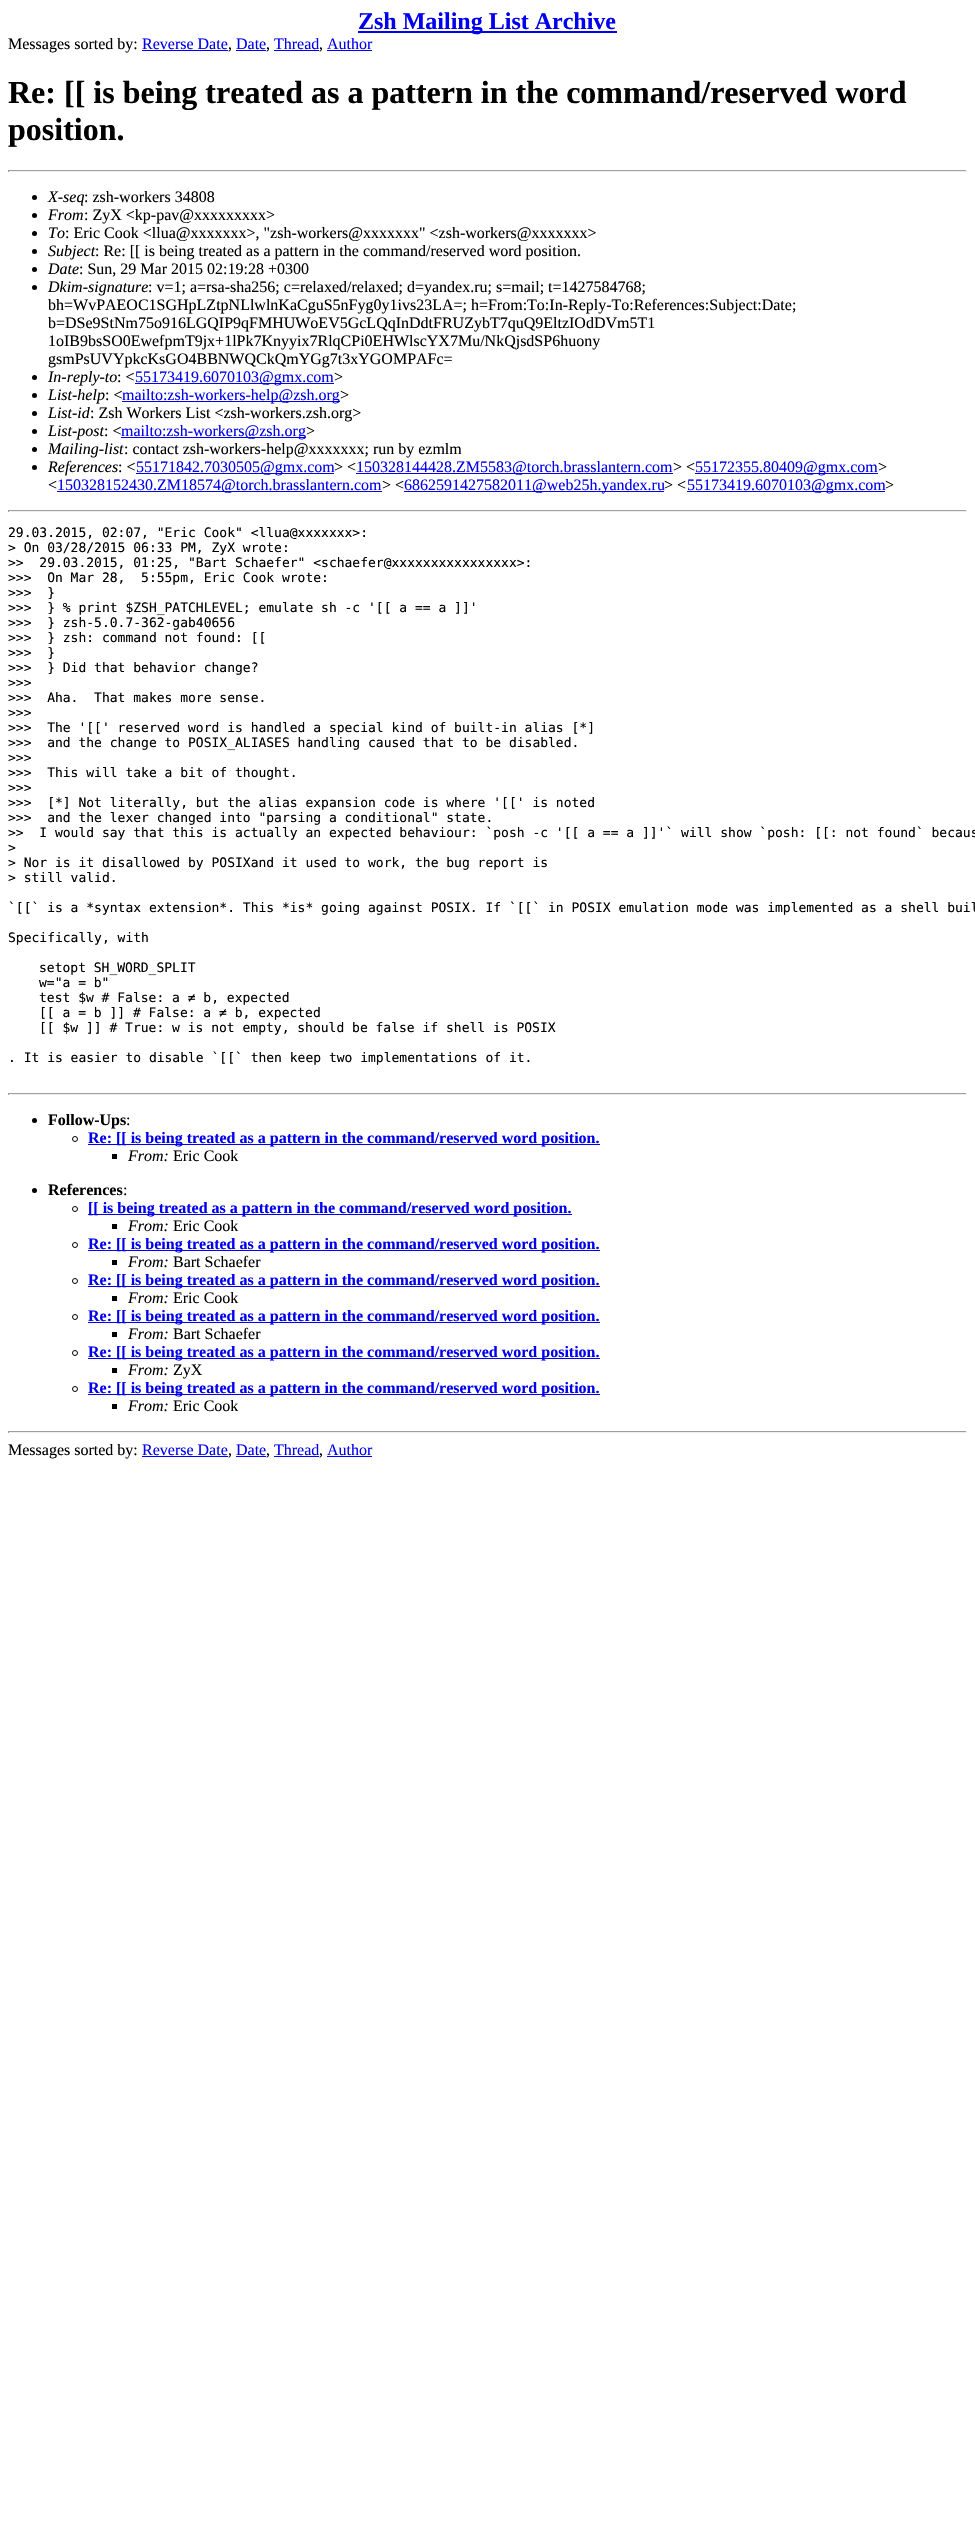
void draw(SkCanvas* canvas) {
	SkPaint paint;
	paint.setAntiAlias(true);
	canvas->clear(0xffffffff);
	paint.setColor(0xff0000ee);
	canvas->drawRect(SkRect::MakeXYWH(358, 31, 259, 2), paint);
	SkFont f1(fontMgr->matchFamilyStyle("Liberation Serif", SkFontStyle::Bold()), 24);
	f1.setSubpixel(true);
	canvas->drawString("Zsh Mailing List Archive", 358, 29, f1, paint);
	SkFont f2(fontMgr->matchFamilyStyle("Liberation Serif", SkFontStyle::Normal()), 16);
	f2.setSubpixel(true);
	paint.setColor(0xff000000);
	canvas->drawString("Messages sorted by:", 8, 49, f2, paint);
	paint.setColor(0xff0000ee);
	canvas->drawString("Reverse Date", 142, 49, f2, paint);
	canvas->drawRect(SkRect::MakeXYWH(142, 50, 86, 1), paint);
	paint.setColor(0xff000000);
	canvas->drawString(",", 228, 49, f2, paint);
	paint.setColor(0xff0000ee);
	canvas->drawString("Date", 236, 49, f2, paint);
	canvas->drawRect(SkRect::MakeXYWH(236, 50, 30, 1), paint);
	paint.setColor(0xff000000);
	canvas->drawString(",", 266, 49, f2, paint);
	paint.setColor(0xff0000ee);
	canvas->drawString("Thread", 274, 49, f2, paint);
	canvas->drawRect(SkRect::MakeXYWH(274, 50, 45, 1), paint);
	paint.setColor(0xff000000);
	canvas->drawString(",", 319, 49, f2, paint);
	paint.setColor(0xff0000ee);
	canvas->drawString("Author", 327, 49, f2, paint);
	canvas->drawRect(SkRect::MakeXYWH(327, 50, 45, 1), paint);
	SkFont f3(fontMgr->matchFamilyStyle("Liberation Serif", SkFontStyle::Bold()), 32);
	f3.setSubpixel(true);
	paint.setColor(0xff000000);
	canvas->drawString("Re: [[ is being treated as a pattern in the command/reserved word", 8, 103, f3, paint);
	canvas->drawString("position.", 8, 140, f3, paint);
	paint.setColor(0xff9f9f9f);
	canvas->drawRect(SkRect::MakeXYWH(8, 170, 959, 1), paint);
	paint.setColor(0xffeeeeee);
	canvas->drawRect(SkRect::MakeXYWH(966, 170, 1, 2), paint);
	canvas->drawRect(SkRect::MakeXYWH(8, 171, 959, 1), paint);
	paint.setColor(0xff9f9f9f);
	canvas->drawRect(SkRect::MakeXYWH(8, 170, 1, 2), paint);
	paint.setColor(0xff000000);
	canvas->drawCircle(34.5, 197.5, 2.5, paint);
	SkFont f4(fontMgr->matchFamilyStyle("Liberation Serif", SkFontStyle::Italic()), 16);
	f4.setSubpixel(true);
	canvas->drawString("X-seq", 48, 202, f4, paint);
	canvas->drawString(": zsh-workers 34808", 84, 202, f2, paint);
	canvas->drawCircle(34.5, 215.5, 2.5, paint);
	canvas->drawString("From", 48, 220, f4, paint);
	canvas->drawString(": ZyX <kp-pav@xxxxxxxxx>", 84, 220, f2, paint);
	canvas->drawCircle(34.5, 233.5, 2.5, paint);
	canvas->drawString("To", 48, 238, f4, paint);
	canvas->drawString(": Eric Cook <llua@xxxxxxx>, \"zsh-workers@xxxxxxx\" <zsh-workers@xxxxxxx>", 65, 238, f2, paint);
	canvas->drawCircle(34.5, 251.5, 2.5, paint);
	canvas->drawString("Subject", 48, 256, f4, paint);
	canvas->drawString(": Re: [[ is being treated as a pattern in the command/reserved word position.", 95, 256, f2, paint);
	canvas->drawCircle(34.5, 269.5, 2.5, paint);
	canvas->drawString("Date", 48, 274, f4, paint);
	canvas->drawString(": Sun, 29 Mar 2015 02:19:28 +0300", 79, 274, f2, paint);
	canvas->drawCircle(34.5, 287.5, 2.5, paint);
	canvas->drawString("Dkim-signature", 48, 292, f4, paint);
	canvas->drawString(": v=1; a=rsa-sha256; c=relaxed/relaxed; d=yandex.ru; s=mail; t=1427584768;", 148, 292, f2, paint);
	canvas->drawString("bh=WvPAEOC1SGHpLZtpNLlwlnKaCguS5nFyg0y1ivs23LA=; h=From:To:In-Reply-To:References:Subject:Date;", 48, 310, f2, paint);
	canvas->drawString("b=DSe9StNm75o916LGQIP9qFMHUWoEV5GcLQqInDdtFRUZybT7quQ9EltzIOdDVm5T1", 48, 328, f2, paint);
	canvas->drawString("1oIB9bsSO0EwefpmT9jx+1lPk7Knyyix7RlqCPi0EHWlscYX7Mu/NkQjsdSP6huony", 48, 346, f2, paint);
	canvas->drawString("gsmPsUVYpkcKsGO4BBNWQCkQmYGg7t3xYGOMPAFc=", 48, 364, f2, paint);
	canvas->drawCircle(34.5, 377.5, 2.5, paint);
	canvas->drawString("In-reply-to", 48, 382, f4, paint);
	canvas->drawString(": <", 117, 382, f2, paint);
	paint.setColor(0xff0000ee);
	canvas->drawRect(SkRect::MakeXYWH(135, 383, 199, 1), paint);
	canvas->drawString("55173419.6070103@gmx.com", 135, 382, f2, paint);
	paint.setColor(0xff000000);
	canvas->drawString(">", 334, 382, f2, paint);
	canvas->drawCircle(34.5, 395.5, 2.5, paint);
	canvas->drawString("List-help", 48, 400, f4, paint);
	canvas->drawString(": <", 105, 400, f2, paint);
	paint.setColor(0xff0000ee);
	canvas->drawRect(SkRect::MakeXYWH(122, 401, 218, 1), paint);
	canvas->drawString("mailto:zsh-workers-help@zsh.org", 122, 400, f2, paint);
	paint.setColor(0xff000000);
	canvas->drawString(">", 340, 400, f2, paint);
	canvas->drawCircle(34.5, 413.5, 2.5, paint);
	canvas->drawString("List-id", 48, 418, f4, paint);
	canvas->drawString(": Zsh Workers List <zsh-workers.zsh.org>", 90, 418, f2, paint);
	canvas->drawCircle(34.5, 431.5, 2.5, paint);
	canvas->drawString("List-post", 48, 436, f4, paint);
	canvas->drawString(": <", 104, 436, f2, paint);
	paint.setColor(0xff0000ee);
	canvas->drawRect(SkRect::MakeXYWH(121, 437, 185, 1), paint);
	canvas->drawString("mailto:zsh-workers@zsh.org", 121, 436, f2, paint);
	paint.setColor(0xff000000);
	canvas->drawString(">", 306, 436, f2, paint);
	canvas->drawCircle(34.5, 449.5, 2.5, paint);
	canvas->drawString("Mailing-list", 48, 454, f4, paint);
	canvas->drawString(": contact zsh-workers-help@xxxxxxx; run by ezmlm", 124, 454, f2, paint);
	canvas->drawCircle(34.5, 467.5, 2.5, paint);
	canvas->drawString("References", 48, 472, f4, paint);
	canvas->drawString(": <", 118, 472, f2, paint);
	paint.setColor(0xff0000ee);
	canvas->drawRect(SkRect::MakeXYWH(136, 473, 198, 1), paint);
	canvas->drawString("55171842.7030505@gmx.com", 136, 472, f2, paint);
	paint.setColor(0xff000000);
	canvas->drawString("> <", 334, 472, f2, paint);
	paint.setColor(0xff0000ee);
	canvas->drawRect(SkRect::MakeXYWH(356, 473, 317, 1), paint);
	canvas->drawString("150328144428.ZM5583@torch.brasslantern.com", 356, 472, f2, paint);
	paint.setColor(0xff000000);
	canvas->drawString("> <", 673, 472, f2, paint);
	paint.setColor(0xff0000ee);
	canvas->drawRect(SkRect::MakeXYWH(695, 473, 183, 1), paint);
	canvas->drawString("55172355.80409@gmx.com", 695, 472, f2, paint);
	paint.setColor(0xff000000);
	canvas->drawString(">", 878, 472, f2, paint);
	canvas->drawString("<", 48, 490, f2, paint);
	paint.setColor(0xff0000ee);
	canvas->drawRect(SkRect::MakeXYWH(57, 491, 325, 1), paint);
	canvas->drawString("150328152430.ZM18574@torch.brasslantern.com", 57, 490, f2, paint);
	paint.setColor(0xff000000);
	canvas->drawString("> <", 382, 490, f2, paint);
	paint.setColor(0xff0000ee);
	canvas->drawRect(SkRect::MakeXYWH(404, 491, 260, 1), paint);
	canvas->drawString("6862591427582011@web25h.yandex.ru", 404, 490, f2, paint);
	paint.setColor(0xff000000);
	canvas->drawString("> <", 664, 490, f2, paint);
	paint.setColor(0xff0000ee);
	canvas->drawRect(SkRect::MakeXYWH(687, 491, 198, 1), paint);
	canvas->drawString("55173419.6070103@gmx.com", 687, 490, f2, paint);
	paint.setColor(0xff000000);
	canvas->drawString(">", 885, 490, f2, paint);
	paint.setColor(0xff9f9f9f);
	canvas->drawRect(SkRect::MakeXYWH(8, 510, 959, 1), paint);
	paint.setColor(0xffeeeeee);
	canvas->drawRect(SkRect::MakeXYWH(966, 510, 1, 2), paint);
	canvas->drawRect(SkRect::MakeXYWH(8, 511, 959, 1), paint);
	paint.setColor(0xff9f9f9f);
	canvas->drawRect(SkRect::MakeXYWH(8, 510, 1, 2), paint);
	SkFont f5(fontMgr->matchFamilyStyle("DejaVu Sans Mono", SkFontStyle::Normal()), 13);
	f5.setSubpixel(true);
	paint.setColor(0xff000000);
	canvas->drawString("29.03.2015, 02:07, \"Eric Cook\" <llua@xxxxxxx>:", 8, 537, f5, paint);
	canvas->drawString("> On 03/28/2015 06:33 PM, ZyX wrote:", 8, 552, f5, paint);
	canvas->drawString(">>  29.03.2015, 01:25, \"Bart Schaefer\" <schaefer@xxxxxxxxxxxxxxxx>:", 8, 567, f5, paint);
	canvas->drawString(">>>  On Mar 28,  5:55pm, Eric Cook wrote:", 8, 582, f5, paint);
	canvas->drawString(">>>  }", 8, 597, f5, paint);
	canvas->drawString(">>>  } % print $ZSH_PATCHLEVEL; emulate sh -c '[[ a == a ]]'", 8, 612, f5, paint);
	canvas->drawString(">>>  } zsh-5.0.7-362-gab40656", 8, 627, f5, paint);
	canvas->drawString(">>>  } zsh: command not found: [[", 8, 642, f5, paint);
	canvas->drawString(">>>  }", 8, 657, f5, paint);
	canvas->drawString(">>>  } Did that behavior change?", 8, 672, f5, paint);
	canvas->drawString(">>>", 8, 687, f5, paint);
	canvas->drawString(">>>  Aha.  That makes more sense.", 8, 702, f5, paint);
	canvas->drawString(">>>", 8, 717, f5, paint);
	canvas->drawString(">>>  The '[[' reserved word is handled a special kind of built-in alias [*]", 8, 732, f5, paint);
	canvas->drawString(">>>  and the change to POSIX_ALIASES handling caused that to be disabled.", 8, 747, f5, paint);
	canvas->drawString(">>>", 8, 762, f5, paint);
	canvas->drawString(">>>  This will take a bit of thought.", 8, 777, f5, paint);
	canvas->drawString(">>>", 8, 792, f5, paint);
	canvas->drawString(">>>  [*] Not literally, but the alias expansion code is where '[[' is noted", 8, 807, f5, paint);
	canvas->drawString(">>>  and the lexer changed into \"parsing a conditional\" state.", 8, 822, f5, paint);
	canvas->drawString(">>  I would say that this is actually an expected behaviour: `posh -c '[[ a == a ]]'` will show `posh: [[: not found` becaus", 8, 837, f5, paint);
	canvas->drawString(">", 8, 852, f5, paint);
	canvas->drawString("> Nor is it disallowed by POSIXand it used to work, the bug report is", 8, 867, f5, paint);
	canvas->drawString("> still valid.", 8, 882, f5, paint);
	canvas->drawString("`[[` is a *syntax extension*. This *is* going against POSIX. If `[[` in POSIX emulation mode was implemented as a shell buil", 8, 912, f5, paint);
	canvas->drawString("Specifically, with", 8, 942, f5, paint);
	canvas->drawString("setopt SH_WORD_SPLIT", 39, 972, f5, paint);
	canvas->drawString("w=\"a = b\"", 39, 987, f5, paint);
	canvas->drawString("test $w # False: a ≠ b, expected", 39, 1002, f5, paint);
	canvas->drawString("[[ a = b ]] # False: a ≠ b, expected", 39, 1017, f5, paint);
	canvas->drawString("[[ $w ]] # True: w is not empty, should be false if shell is POSIX", 39, 1032, f5, paint);
	canvas->drawString(". It is easier to disable `[[` then keep two implementations of it.", 8, 1062, f5, paint);
	paint.setColor(0xff9f9f9f);
	canvas->drawRect(SkRect::MakeXYWH(8, 1093, 959, 1), paint);
	paint.setColor(0xffeeeeee);
	canvas->drawRect(SkRect::MakeXYWH(966, 1093, 1, 2), paint);
	canvas->drawRect(SkRect::MakeXYWH(8, 1094, 959, 1), paint);
	paint.setColor(0xff9f9f9f);
	canvas->drawRect(SkRect::MakeXYWH(8, 1093, 1, 2), paint);
	paint.setColor(0xff000000);
	canvas->drawCircle(34.5, 1120.5, 2.5, paint);
	SkFont f6(fontMgr->matchFamilyStyle("Liberation Serif", SkFontStyle::Bold()), 16);
	f6.setSubpixel(true);
	canvas->drawString("Follow-Ups", 48, 1125, f6, paint);
	canvas->drawString(":", 126, 1125, f2, paint);
	paint.setStroke(true);
	paint.setStrokeWidth(1);
	canvas->drawCircle(75, 1139, 2.5, paint);
	paint.setStroke(false);
	paint.setColor(0xff0000ee);
	canvas->drawRect(SkRect::MakeXYWH(88, 1144, 512, 1), paint);
	canvas->drawString("Re: [[ is being treated as a pattern in the command/reserved word position.", 88, 1143, f6, paint);
	paint.setColor(0xff000000);
	canvas->drawRect(SkRect::MakeXYWH(112, 1154, 5, 5), paint);
	canvas->drawString("From:", 128, 1161, f4, paint);
	canvas->drawString("Eric Cook", 173, 1161, f2, paint);
	canvas->drawCircle(34.5, 1190.5, 2.5, paint);
	canvas->drawString("References", 48, 1195, f6, paint);
	canvas->drawString(":", 123, 1195, f2, paint);
	paint.setStroke(true);
	canvas->drawCircle(75, 1209, 2.5, paint);
	paint.setStroke(false);
	paint.setColor(0xff0000ee);
	canvas->drawRect(SkRect::MakeXYWH(88, 1214, 484, 1), paint);
	canvas->drawString("[[ is being treated as a pattern in the command/reserved word position.", 88, 1213, f6, paint);
	paint.setColor(0xff000000);
	canvas->drawRect(SkRect::MakeXYWH(112, 1224, 5, 5), paint);
	canvas->drawString("From:", 128, 1231, f4, paint);
	canvas->drawString("Eric Cook", 173, 1231, f2, paint);
	paint.setStroke(true);
	canvas->drawCircle(75, 1245, 2.5, paint);
	paint.setStroke(false);
	paint.setColor(0xff0000ee);
	canvas->drawRect(SkRect::MakeXYWH(88, 1250, 512, 1), paint);
	canvas->drawString("Re: [[ is being treated as a pattern in the command/reserved word position.", 88, 1249, f6, paint);
	paint.setColor(0xff000000);
	canvas->drawRect(SkRect::MakeXYWH(112, 1260, 5, 5), paint);
	canvas->drawString("From:", 128, 1267, f4, paint);
	canvas->drawString("Bart Schaefer", 173, 1267, f2, paint);
	paint.setStroke(true);
	canvas->drawCircle(75, 1281, 2.5, paint);
	paint.setStroke(false);
	paint.setColor(0xff0000ee);
	canvas->drawRect(SkRect::MakeXYWH(88, 1286, 512, 1), paint);
	canvas->drawString("Re: [[ is being treated as a pattern in the command/reserved word position.", 88, 1285, f6, paint);
	paint.setColor(0xff000000);
	canvas->drawRect(SkRect::MakeXYWH(112, 1296, 5, 5), paint);
	canvas->drawString("From:", 128, 1303, f4, paint);
	canvas->drawString("Eric Cook", 173, 1303, f2, paint);
	paint.setStroke(true);
	canvas->drawCircle(75, 1317, 2.5, paint);
	paint.setStroke(false);
	paint.setColor(0xff0000ee);
	canvas->drawRect(SkRect::MakeXYWH(88, 1322, 512, 1), paint);
	canvas->drawString("Re: [[ is being treated as a pattern in the command/reserved word position.", 88, 1321, f6, paint);
	paint.setColor(0xff000000);
	canvas->drawRect(SkRect::MakeXYWH(112, 1332, 5, 5), paint);
	canvas->drawString("From:", 128, 1339, f4, paint);
	canvas->drawString("Bart Schaefer", 173, 1339, f2, paint);
	paint.setStroke(true);
	canvas->drawCircle(75, 1353, 2.5, paint);
	paint.setStroke(false);
	paint.setColor(0xff0000ee);
	canvas->drawRect(SkRect::MakeXYWH(88, 1358, 512, 1), paint);
	canvas->drawString("Re: [[ is being treated as a pattern in the command/reserved word position.", 88, 1357, f6, paint);
	paint.setColor(0xff000000);
	canvas->drawRect(SkRect::MakeXYWH(112, 1368, 5, 5), paint);
	canvas->drawString("From:", 128, 1375, f4, paint);
	canvas->drawString("ZyX", 173, 1375, f2, paint);
	paint.setStroke(true);
	canvas->drawCircle(75, 1389, 2.5, paint);
	paint.setStroke(false);
	paint.setColor(0xff0000ee);
	canvas->drawRect(SkRect::MakeXYWH(88, 1394, 512, 1), paint);
	canvas->drawString("Re: [[ is being treated as a pattern in the command/reserved word position.", 88, 1393, f6, paint);
	paint.setColor(0xff000000);
	canvas->drawRect(SkRect::MakeXYWH(112, 1404, 5, 5), paint);
	canvas->drawString("From:", 128, 1411, f4, paint);
	canvas->drawString("Eric Cook", 173, 1411, f2, paint);
	paint.setColor(0xff9f9f9f);
	canvas->drawRect(SkRect::MakeXYWH(8, 1431, 959, 1), paint);
	paint.setColor(0xffeeeeee);
	canvas->drawRect(SkRect::MakeXYWH(966, 1431, 1, 2), paint);
	canvas->drawRect(SkRect::MakeXYWH(8, 1432, 959, 1), paint);
	paint.setColor(0xff9f9f9f);
	canvas->drawRect(SkRect::MakeXYWH(8, 1431, 1, 2), paint);
	paint.setColor(0xff000000);
	canvas->drawString("Messages sorted by:", 8, 1455, f2, paint);
	paint.setColor(0xff0000ee);
	canvas->drawString("Reverse Date", 142, 1455, f2, paint);
	canvas->drawRect(SkRect::MakeXYWH(142, 1456, 86, 1), paint);
	paint.setColor(0xff000000);
	canvas->drawString(",", 228, 1455, f2, paint);
	paint.setColor(0xff0000ee);
	canvas->drawString("Date", 236, 1455, f2, paint);
	canvas->drawRect(SkRect::MakeXYWH(236, 1456, 30, 1), paint);
	paint.setColor(0xff000000);
	canvas->drawString(",", 266, 1455, f2, paint);
	paint.setColor(0xff0000ee);
	canvas->drawString("Thread", 274, 1455, f2, paint);
	canvas->drawRect(SkRect::MakeXYWH(274, 1456, 45, 1), paint);
	paint.setColor(0xff000000);
	canvas->drawString(",", 319, 1455, f2, paint);
	paint.setColor(0xff0000ee);
	canvas->drawString("Author", 327, 1455, f2, paint);
	canvas->drawRect(SkRect::MakeXYWH(327, 1456, 45, 1), paint);
}
